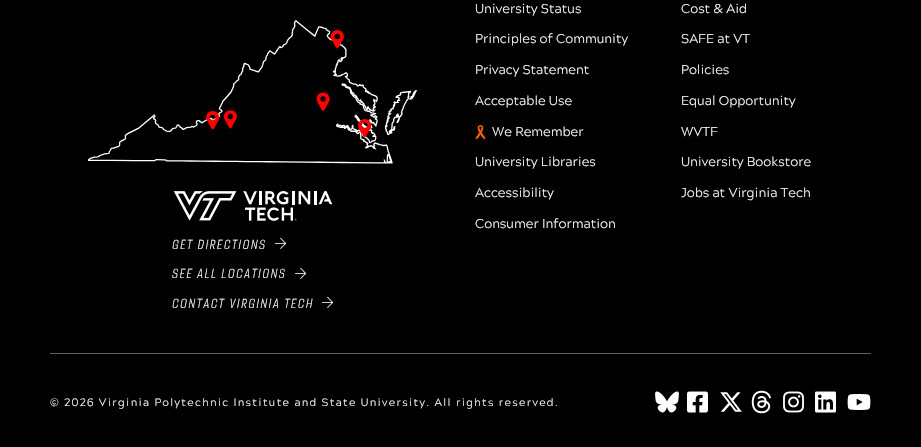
void draw(SkCanvas* canvas) {
	SkPaint paint;
	paint.setAntiAlias(true);
	auto spacedText = [&](const char* s, float x, float y, const SkFont& font, const SkPaint& ink, float letter, float word) {
		std::vector<SkGlyphID> glyphs(font.countText(s, strlen(s), SkTextEncoding::kUTF8));
		std::vector<float> xs(glyphs.size());
		font.textToGlyphs(s, strlen(s), SkTextEncoding::kUTF8, glyphs);
		font.getXPos(glyphs, xs, x);
		float extra = 0;
		for (size_t i = 0; i < glyphs.size(); i++) {
			xs[i] += extra;
			extra += letter + word * (glyphs[i] == font.unicharToGlyph(' '));
		}
		canvas->drawTextBlob(SkTextBlob::MakeFromPosHGlyphs(glyphs, xs, y, font), 0, 0, ink);
	};
	canvas->clear(0xff000000);
	SkFont f1(fontMgr->matchFamilyStyle("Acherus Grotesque", SkFontStyle(300, SkFontStyle::kNormal_Width, SkFontStyle::kUpright_Slant)), 12.75);
	f1.setSubpixel(true);
	paint.setColor(0xffffffff);
	canvas->drawString("University Status", 475, 13, f1, paint);
	canvas->drawString("Cost & Aid", 681, 13, f1, paint);
	canvas->drawString("Principles of Community", 475, 43, f1, paint);
	canvas->drawString("SAFE at VT", 681, 43, f1, paint);
	canvas->drawString("Privacy Statement", 475, 74, f1, paint);
	canvas->drawString("Policies", 681, 74, f1, paint);
	canvas->drawString("Acceptable Use", 475, 105, f1, paint);
	canvas->drawString("Equal Opportunity", 681, 105, f1, paint);
	canvas->drawImageRect(SkImages::DeferredFromEncodedData(SkData::MakeFromFileName("img1.png")), SkRect::MakeXYWH(475, 125, 11, 15), SkSamplingOptions());
	canvas->drawString("We Remember", 492, 136, f1, paint);
	canvas->drawString("WVTF", 681, 136, f1, paint);
	canvas->drawString("University Libraries", 475, 166, f1, paint);
	canvas->drawString("University Bookstore", 681, 166, f1, paint);
	canvas->drawString("Accessibility", 475, 197, f1, paint);
	canvas->drawString("Jobs at Virginia Tech", 681, 197, f1, paint);
	canvas->drawString("Consumer Information", 475, 228, f1, paint);
	canvas->drawImageRect(SkImages::DeferredFromEncodedData(SkData::MakeFromFileName("img2.png")), SkRect::MakeXYWH(88, 20, 329, 144), SkSamplingOptions());
	canvas->drawImageRect(SkImages::DeferredFromEncodedData(SkData::MakeFromFileName("img3.png")), SkRect::MakeXYWH(173, 191, 160, 30), SkSamplingOptions());
	SkFont f2(fontMgr->matchFamilyStyle("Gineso", SkFontStyle(300, SkFontStyle::kNormal_Width, SkFontStyle::kItalic_Slant)), 12.75);
	f2.setSubpixel(true);
	spacedText("GET DIRECTIONS", 172, 249, f2, paint, 1.6, 0);
	canvas->drawImageRect(SkImages::DeferredFromEncodedData(SkData::MakeFromFileName("img4.png")), SkRect::MakeXYWH(275, 237, 12, 12), SkSamplingOptions());
	spacedText("SEE ALL LOCATIONS", 172, 278, f2, paint, 1.6, 0);
	canvas->drawImageRect(SkImages::DeferredFromEncodedData(SkData::MakeFromFileName("img4.png")), SkRect::MakeXYWH(295, 267, 12, 12), SkSamplingOptions());
	spacedText("CONTACT VIRGINIA TECH", 172, 308, f2, paint, 1.6, 0);
	canvas->drawImageRect(SkImages::DeferredFromEncodedData(SkData::MakeFromFileName("img4.png")), SkRect::MakeXYWH(322, 296, 12, 12), SkSamplingOptions());
	paint.setColor(0xff5e6062);
	canvas->drawRect(SkRect::MakeXYWH(50, 353, 821, 1), paint);
	SkFont f3(fontMgr->matchFamilyStyle("Acherus Grotesque", SkFontStyle(300, SkFontStyle::kNormal_Width, SkFontStyle::kUpright_Slant)), 10.65);
	f3.setSubpixel(true);
	paint.setColor(0xffffffff);
	spacedText("© 2026 Virginia Polytechnic Institute and State University. All rights reserved.", 50, 406, f3, paint, 1.33, 0);
	canvas->drawImageRect(SkImages::DeferredFromEncodedData(SkData::MakeFromFileName("img5.png")), SkRect::MakeXYWH(655, 391, 24, 22), SkSamplingOptions());
	canvas->drawImageRect(SkImages::DeferredFromEncodedData(SkData::MakeFromFileName("img6.png")), SkRect::MakeXYWH(687, 391, 21, 22), SkSamplingOptions());
	canvas->drawImageRect(SkImages::DeferredFromEncodedData(SkData::MakeFromFileName("img7.png")), SkRect::MakeXYWH(720, 392, 22, 20), SkSamplingOptions());
	canvas->drawImageRect(SkImages::DeferredFromEncodedData(SkData::MakeFromFileName("img8.png")), SkRect::MakeXYWH(751, 390, 21, 24), SkSamplingOptions());
	canvas->drawImageRect(SkImages::DeferredFromEncodedData(SkData::MakeFromFileName("img9.png")), SkRect::MakeXYWH(783, 391, 21, 22), SkSamplingOptions());
	canvas->drawImageRect(SkImages::DeferredFromEncodedData(SkData::MakeFromFileName("img10.png")), SkRect::MakeXYWH(815, 391, 21, 22), SkSamplingOptions());
	canvas->drawImageRect(SkImages::DeferredFromEncodedData(SkData::MakeFromFileName("img11.png")), SkRect::MakeXYWH(847, 394, 24, 16), SkSamplingOptions());
}
